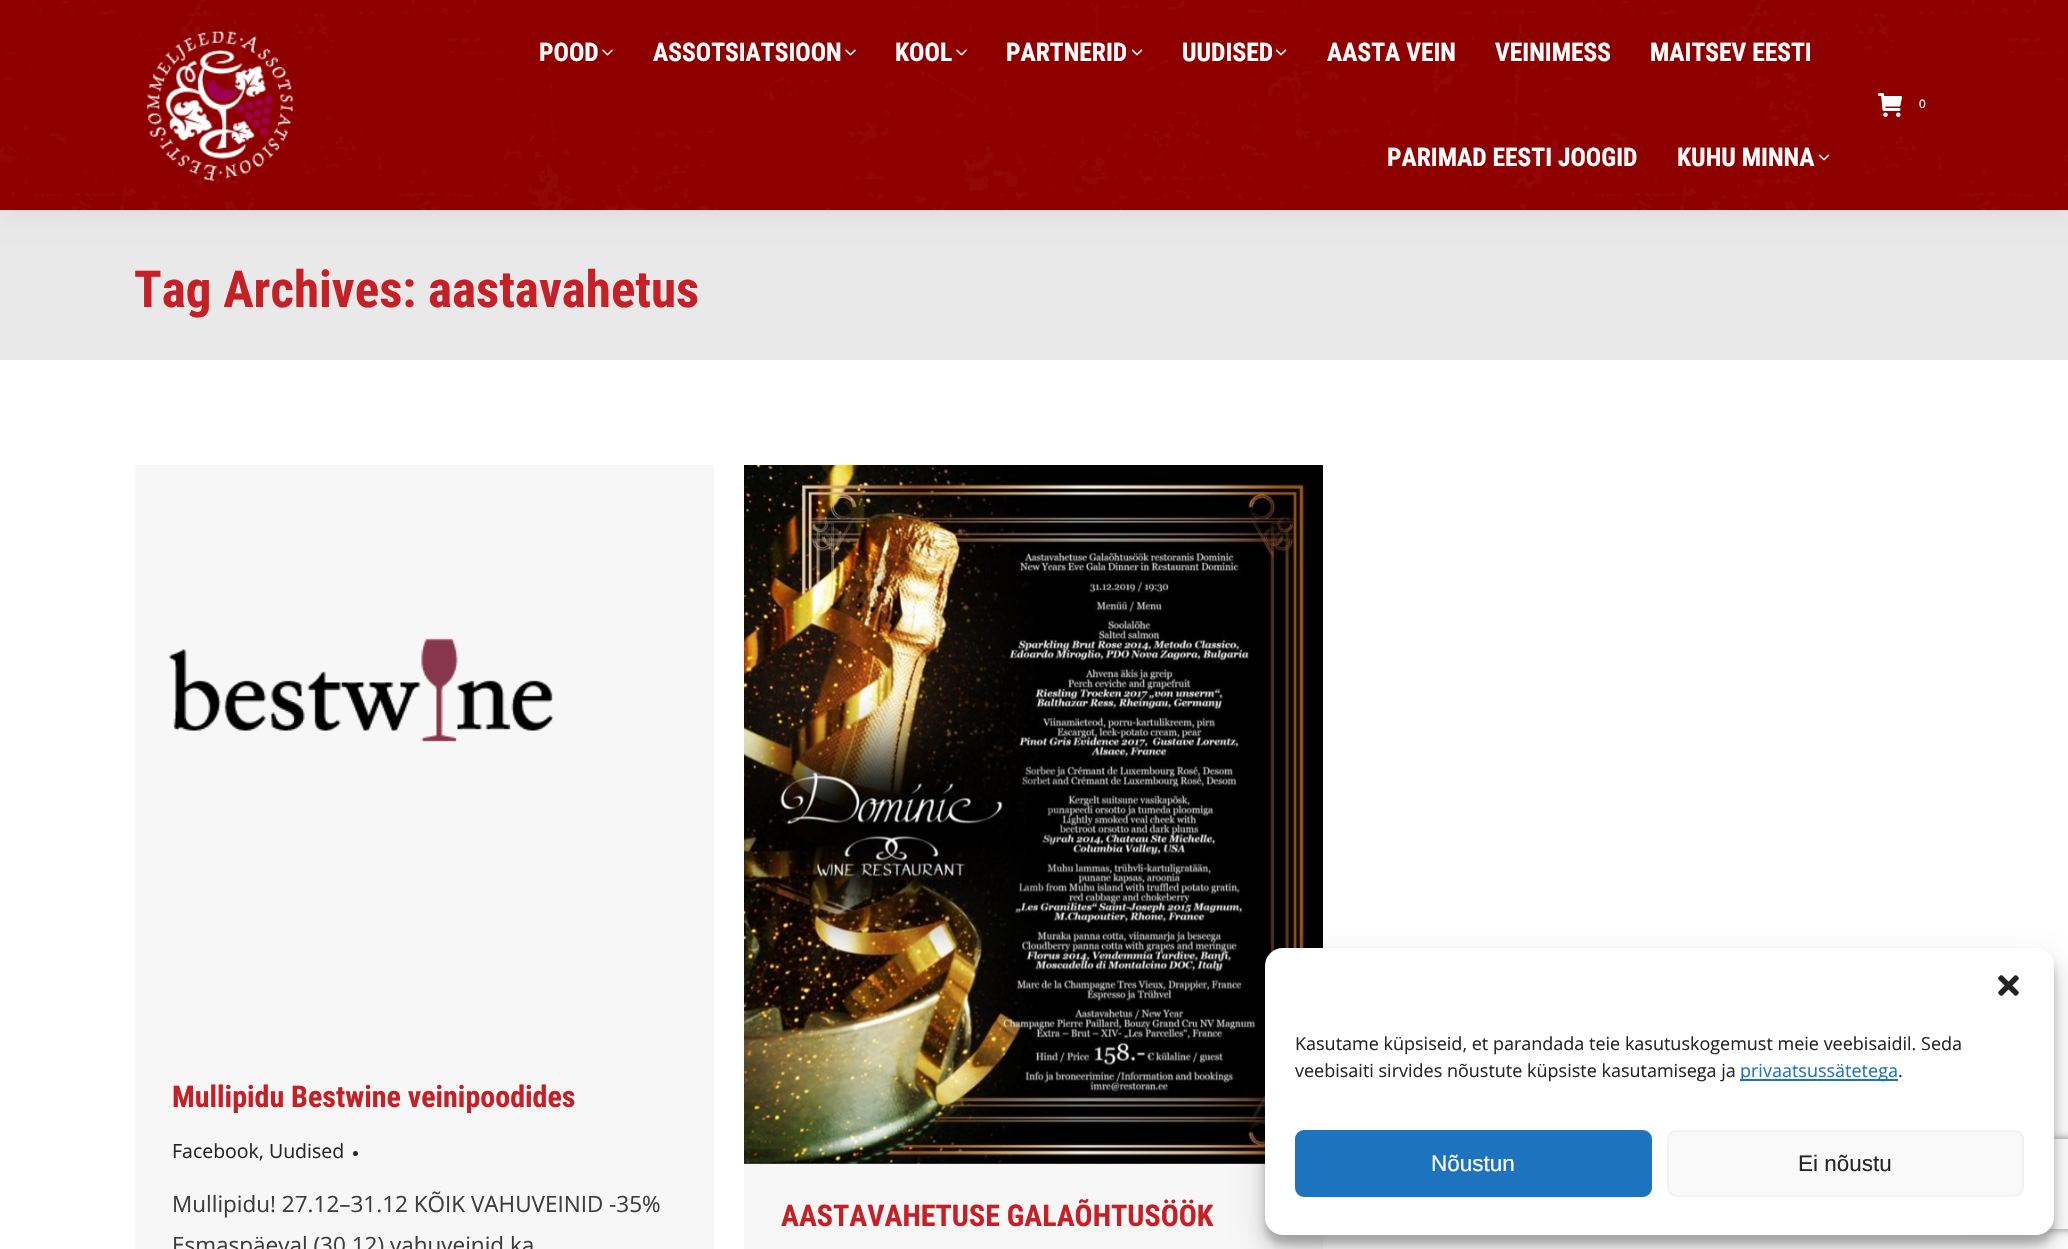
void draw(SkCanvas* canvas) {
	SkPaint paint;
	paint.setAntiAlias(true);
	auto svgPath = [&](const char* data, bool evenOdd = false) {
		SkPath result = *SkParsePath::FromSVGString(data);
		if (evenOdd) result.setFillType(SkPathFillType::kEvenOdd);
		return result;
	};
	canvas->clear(0xffffffff);
	paint.setColor(0xffe9e9e9);
	canvas->drawRect(SkRect::MakeXYWH(0, 210, 2068, 150), paint);
	paint.setColor(0x12000000);
	paint.setMaskFilter(SkMaskFilter::MakeBlur(kNormal_SkBlurStyle, 11));
	canvas->drawRect(SkRect::MakeXYWH(-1, -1, 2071, 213), paint);
	paint.setMaskFilter(nullptr);
	paint.setColor(0xff8e0000);
	canvas->drawRect(SkRect::MakeXYWH(0, 0, 2068, 210), paint);
	canvas->drawImageRect(SkImages::DeferredFromEncodedData(SkData::MakeFromFileName("img1.png")), SkRect::MakeXYWH(0, 0, 2068, 210), SkSamplingOptions());
	canvas->drawImageRect(SkImages::DeferredFromEncodedData(SkData::MakeFromFileName("img2.png")), SkRect::MakeXYWH(147, 31, 147, 150), SkSamplingOptions());
	SkFont f1(fontMgr->matchFamilyStyle("Roboto Condensed", SkFontStyle::Bold()), 25.5);
	f1.setSubpixel(true);
	paint.setColor(0xffffffff);
	canvas->drawString("POOD", 539, 61, f1, paint);
	canvas->drawImageRect(SkImages::DeferredFromEncodedData(SkData::MakeFromFileName("img3.png")), SkRect::MakeXYWH(602, 49, 11, 7), SkSamplingOptions());
	canvas->drawString("ASSOTSIATSIOON", 653, 61, f1, paint);
	canvas->drawImageRect(SkImages::DeferredFromEncodedData(SkData::MakeFromFileName("img3.png")), SkRect::MakeXYWH(845, 49, 11, 7), SkSamplingOptions());
	canvas->drawString("KOOL", 895, 61, f1, paint);
	canvas->drawImageRect(SkImages::DeferredFromEncodedData(SkData::MakeFromFileName("img3.png")), SkRect::MakeXYWH(956, 49, 11, 7), SkSamplingOptions());
	canvas->drawString("PARTNERID", 1006, 61, f1, paint);
	canvas->drawImageRect(SkImages::DeferredFromEncodedData(SkData::MakeFromFileName("img4.png")), SkRect::MakeXYWH(1131, 49, 12, 7), SkSamplingOptions());
	canvas->drawString("UUDISED", 1182, 61, f1, paint);
	canvas->drawImageRect(SkImages::DeferredFromEncodedData(SkData::MakeFromFileName("img4.png")), SkRect::MakeXYWH(1275, 49, 12, 7), SkSamplingOptions());
	canvas->drawString("AASTA VEIN", 1327, 61, f1, paint);
	canvas->drawString("VEINIMESS", 1495, 61, f1, paint);
	canvas->drawString("MAITSEV EESTI", 1650, 61, f1, paint);
	canvas->drawString("PARIMAD EESTI JOOGID", 1387, 166, f1, paint);
	canvas->drawString("KUHU MINNA", 1677, 166, f1, paint);
	canvas->drawImageRect(SkImages::DeferredFromEncodedData(SkData::MakeFromFileName("img4.png")), SkRect::MakeXYWH(1818, 154, 12, 7), SkSamplingOptions());
	canvas->drawImageRect(SkImages::DeferredFromEncodedData(SkData::MakeFromFileName("img5.png")), SkRect::MakeXYWH(1878, 93, 24, 24), SkSamplingOptions());
	SkFont f2(fontMgr->matchFamilyStyle("Liberation Sans", SkFontStyle::Normal()), 12);
	f2.setSubpixel(true);
	canvas->drawString("0", 1919, 108, f2, paint);
	SkFont f3(fontMgr->matchFamilyStyle("Roboto Condensed", SkFontStyle::Bold()), 51);
	f3.setSubpixel(true);
	paint.setColor(0xffc61f25);
	canvas->drawString("Tag Archives: aastavahetus", 134, 307, f3, paint);
	paint.setColor(0xfff7f7f7);
	canvas->drawRect(SkRect::MakeXYWH(135, 465, 579, 784), paint);
	canvas->drawImageRect(SkImages::DeferredFromEncodedData(SkData::MakeFromFileName("img6.png")), SkRect::MakeXYWH(169, 638, 385, 104), SkSamplingOptions());
	SkFont f4(fontMgr->matchFamilyStyle("Roboto Condensed", SkFontStyle::Bold()), 30);
	f4.setSubpixel(true);
	paint.setColor(0xffc61f25);
	canvas->drawString("Mullipidu Bestwine veinipoodides", 172, 1107, f4, paint);
	SkFont f5(fontMgr->matchFamilyStyle("Open Sans", SkFontStyle::Normal()), 19.5);
	f5.setSubpixel(true);
	paint.setColor(0xff262626);
	canvas->drawString("Facebook, Uudised", 172, 1158, f5, paint);
	canvas->drawCircle(355.5, 1153.5, 2.5, paint);
	SkFont f6(fontMgr->matchFamilyStyle("Open Sans", SkFontStyle::Normal()), 22.5);
	f6.setSubpixel(true);
	paint.setColor(0xff3d3d3d);
	canvas->drawString("Mullipidu! 27.12–31.12 KÕIK VAHUVEINID -35%", 172, 1212, f6, paint);
	canvas->drawString("Esmaspäeval (30.12) vahuveinid ka", 172, 1253, f6, paint);
	paint.setColor(0xfff7f7f7);
	canvas->drawRect(SkRect::MakeXYWH(744, 1163, 579, 86), paint);
	canvas->drawImageRect(SkImages::DeferredFromEncodedData(SkData::MakeFromFileName("img7.png")), SkRect::MakeXYWH(744, 465, 579, 699), SkSamplingOptions());
	paint.setColor(0xffc61f25);
	canvas->drawString("AASTAVAHETUSE GALAÕHTUSÖÖK", 781, 1226, f4, paint);
	paint.setColor(0x3b000000);
	paint.setMaskFilter(SkMaskFilter::MakeBlur(kNormal_SkBlurStyle, 4.5));
	canvas->drawRoundRect(SkRect::MakeXYWH(1265, 957, 789, 287), 18, 18, paint);
	paint.setMaskFilter(nullptr);
	paint.setColor(0x30000000);
	paint.setMaskFilter(SkMaskFilter::MakeBlur(kNormal_SkBlurStyle, 15));
	canvas->drawRoundRect(SkRect::MakeXYWH(1265, 963, 789, 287), 18, 18, paint);
	paint.setMaskFilter(nullptr);
	canvas->save();
	canvas->clipPath(svgPath("M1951 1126H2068V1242H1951ZM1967 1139H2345C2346.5 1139 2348 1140.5 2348 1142V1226C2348 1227.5 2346.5 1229 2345 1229H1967C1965.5 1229 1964 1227.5 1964 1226V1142C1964 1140.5 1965.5 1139 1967 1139Z", true), true);
	paint.setColor(0xff808080);
	paint.setMaskFilter(SkMaskFilter::MakeBlur(kNormal_SkBlurStyle, 4));
	canvas->drawRoundRect(SkRect::MakeXYWH(1964, 1139, 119, 90), 3, 3, paint);
	paint.setMaskFilter(nullptr);
	canvas->restore();
	paint.setColor(0xffffffff);
	canvas->drawRoundRect(SkRect::MakeXYWH(1265, 948, 789, 287), 18, 18, paint);
	canvas->drawImageRect(SkImages::DeferredFromEncodedData(SkData::MakeFromFileName("img8.png")), SkRect::MakeXYWH(1998, 975, 21, 21), SkSamplingOptions());
	SkFont f7(fontMgr->matchFamilyStyle("Open Sans", SkFontStyle::Normal()), 18);
	f7.setSubpixel(true);
	paint.setColor(0xff262626);
	canvas->drawString("Kasutame küpsiseid, et parandada teie kasutuskogemust meie veebisaidil. Seda", 1295, 1050, f7, paint);
	canvas->drawString("veebisaiti sirvides nõustute küpsiste kasutamisega ja", 1295, 1077, f7, paint);
	paint.setColor(0xff1e73be);
	canvas->drawRect(SkRect::MakeXYWH(1740, 1079, 158, 2), paint);
	canvas->drawString("privaatsussätetega", 1740, 1077, f7, paint);
	paint.setColor(0xff262626);
	canvas->drawString(".", 1898, 1077, f7, paint);
	paint.setColor(0xff1e73be);
	canvas->drawRoundRect(SkRect::MakeXYWH(1296, 1131, 355, 65), 8, 8, paint);
	paint.setStroke(true);
	paint.setStrokeWidth(2);
	canvas->drawRoundRect(SkRect::MakeXYWH(1296, 1131, 355, 65), 8, 8, paint);
	SkFont f8(fontMgr->matchFamilyStyle("Liberation Sans", SkFontStyle::Normal()), 22.5);
	f8.setSubpixel(true);
	paint.setStroke(false);
	paint.setColor(0xffffffff);
	canvas->drawString("Nõustun", 1431, 1171, f8, paint);
	paint.setColor(0xfff9f9f9);
	canvas->drawRoundRect(SkRect::MakeXYWH(1668, 1131, 355, 65), 8, 8, paint);
	paint.setStroke(true);
	paint.setColor(0xfff2f2f2);
	canvas->drawRoundRect(SkRect::MakeXYWH(1668, 1131, 355, 65), 8, 8, paint);
	paint.setStroke(false);
	paint.setColor(0xff262626);
	canvas->drawString("Ei nõustu", 1798, 1171, f8, paint);
}
